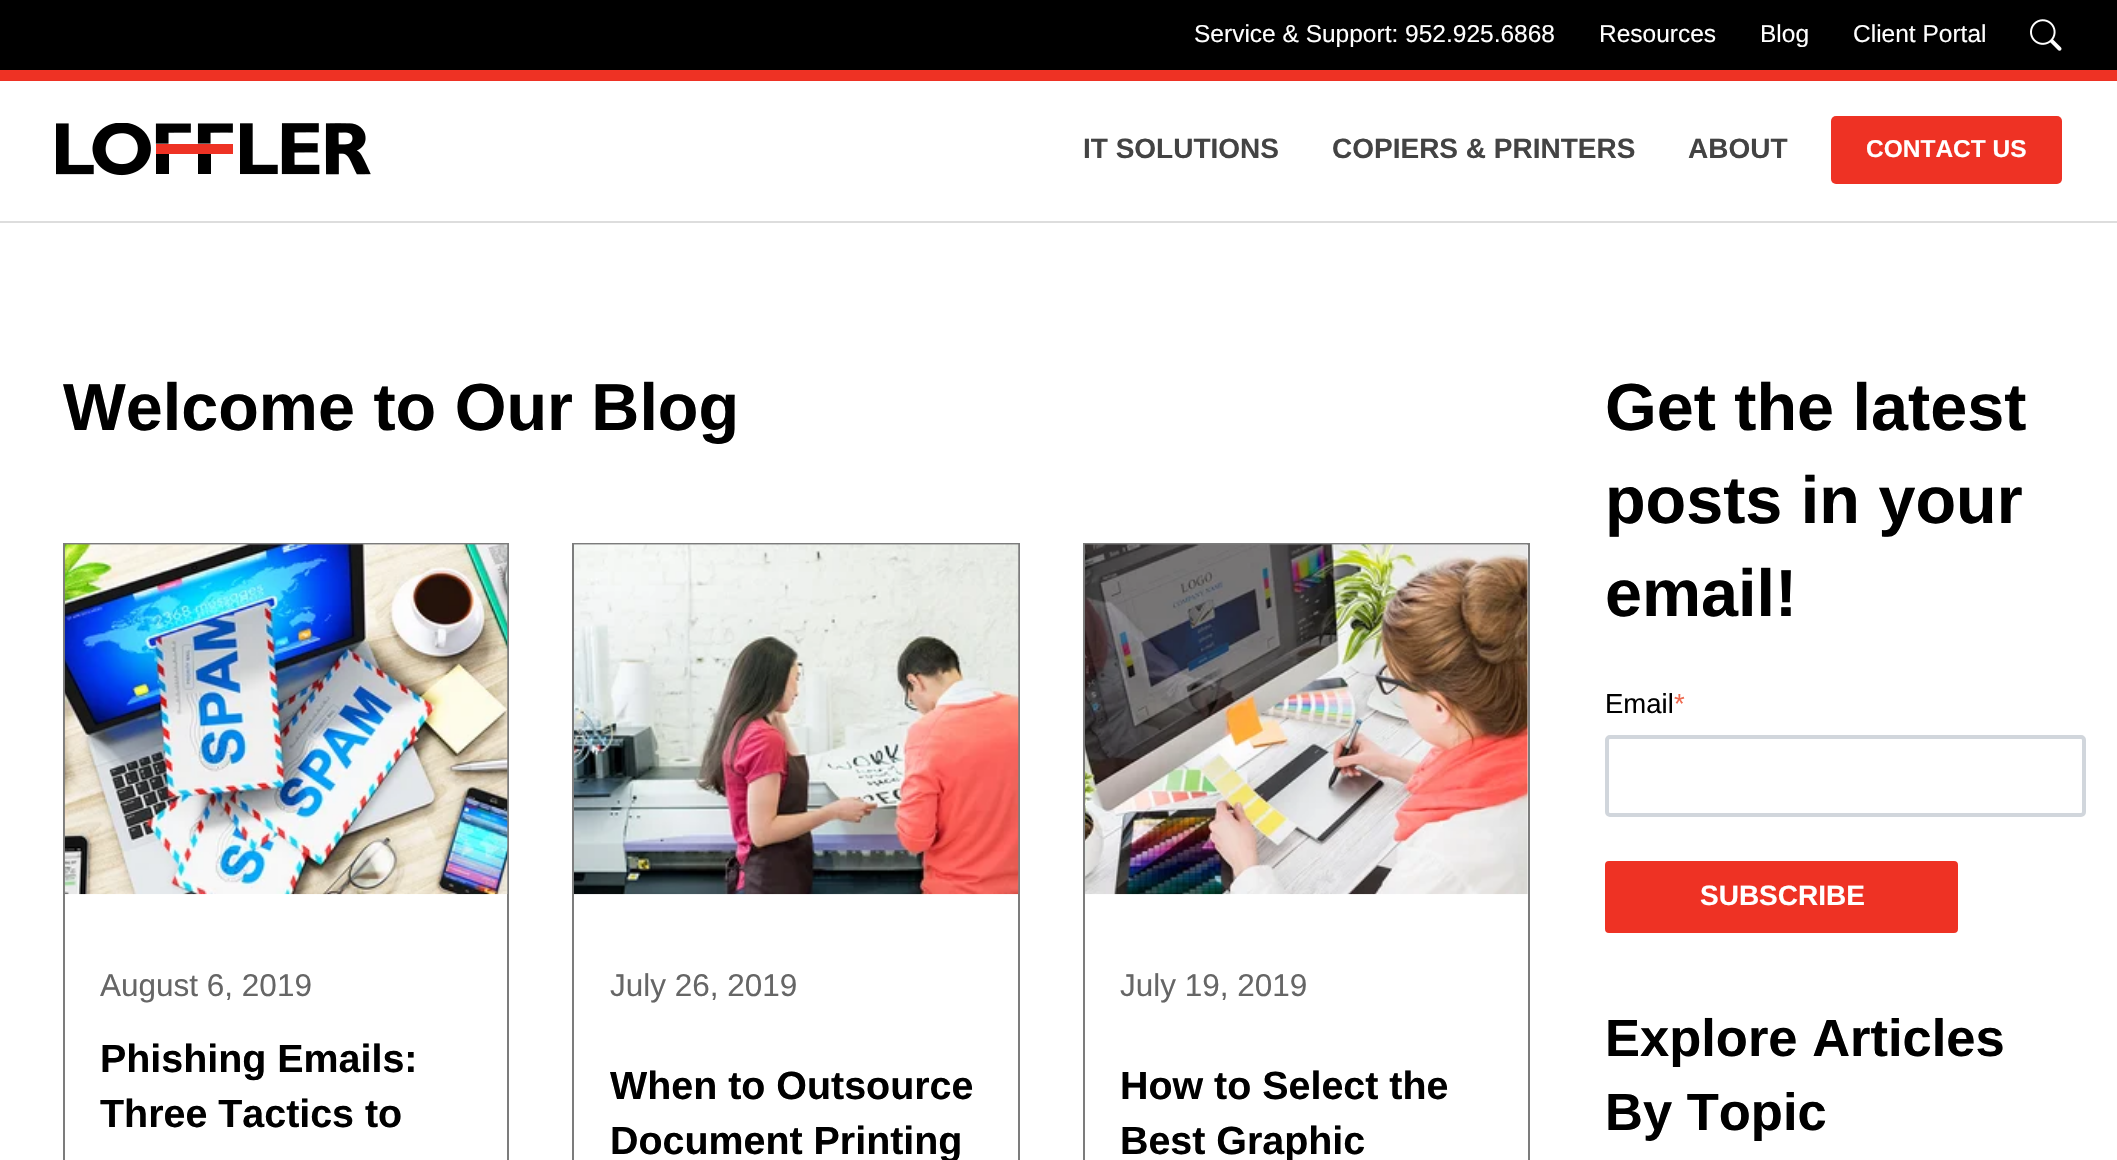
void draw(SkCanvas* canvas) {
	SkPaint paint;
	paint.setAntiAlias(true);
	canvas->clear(0xffffffff);
	paint.setColor(0xffdddddd);
	canvas->drawRect(SkRect::MakeXYWH(0, 221, 2117, 2), paint);
	paint.setColor(0xff000000);
	canvas->drawRect(SkRect::MakeXYWH(0, 0, 2117, 70), paint);
	paint.setColor(0xffee3224);
	canvas->drawRect(SkRect::MakeXYWH(0, 70, 2117, 11), paint);
	SkFont f1(fontMgr->matchFamilyStyle("Liberation Sans", SkFontStyle::Normal()), 24.5);
	f1.setSubpixel(true);
	paint.setColor(0xffffffff);
	canvas->drawString("Service & Support: 952.925.6868", 1194, 42, f1, paint);
	canvas->drawString("Resources", 1599, 42, f1, paint);
	canvas->drawString("Blog", 1760, 42, f1, paint);
	canvas->drawString("Client Portal", 1853, 42, f1, paint);
	canvas->drawImageRect(SkImages::DeferredFromEncodedData(SkData::MakeFromFileName("img1.png")), SkRect::MakeXYWH(2030, 19, 32, 32), SkSamplingOptions());
	canvas->drawImageRect(SkImages::DeferredFromEncodedData(SkData::MakeFromFileName("img2.png")), SkRect::MakeXYWH(56, 123, 315, 53), SkSamplingOptions());
	SkFont f2(fontMgr->matchFamilyStyle("Liberation Sans", SkFontStyle::Bold()), 28);
	f2.setSubpixel(true);
	paint.setColor(0xff434343);
	canvas->drawString("IT SOLUTIONS", 1083, 158, f2, paint);
	canvas->drawString("COPIERS & PRINTERS", 1332, 158, f2, paint);
	canvas->drawString("ABOUT", 1688, 158, f2, paint);
	paint.setColor(0xffee3224);
	canvas->drawRoundRect(SkRect::MakeXYWH(1831, 116, 231, 68), 5, 5, paint);
	SkFont f3(fontMgr->matchFamilyStyle("Liberation Sans", SkFontStyle::Bold()), 24.5);
	f3.setSubpixel(true);
	paint.setColor(0xffffffff);
	canvas->drawString("CONTACT US", 1866, 157, f3, paint);
	SkFont f4(fontMgr->matchFamilyStyle("Liberation Sans", SkFontStyle::Bold()), 66.5);
	f4.setSubpixel(true);
	paint.setColor(0xff000000);
	canvas->drawString("Welcome to Our Blog", 63, 430, f4, paint);
	paint.setStroke(true);
	paint.setStrokeWidth(2);
	paint.setColor(0xff7c7c7c);
	canvas->drawRect(SkRect::MakeXYWH(64, 544, 444, 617), paint);
	canvas->drawImageRect(SkImages::DeferredFromEncodedData(SkData::MakeFromFileName("img3.png")), SkRect::MakeXYWH(64, 544, 444, 351), SkSamplingOptions());
	SkFont f5(fontMgr->matchFamilyStyle("Liberation Sans", SkFontStyle::Normal()), 31.5);
	f5.setSubpixel(true);
	paint.setStroke(false);
	paint.setColor(0xff666666);
	canvas->drawString("August 6, 2019", 100, 996, f5, paint);
	SkFont f6(fontMgr->matchFamilyStyle("Liberation Sans", SkFontStyle::Bold()), 39.4);
	f6.setSubpixel(true);
	paint.setColor(0xff000000);
	canvas->drawString("Phishing Emails:", 100, 1072, f6, paint);
	canvas->drawString("Three Tactics to", 100, 1127, f6, paint);
	paint.setStroke(true);
	paint.setColor(0xff7c7c7c);
	canvas->drawRect(SkRect::MakeXYWH(573, 544, 446, 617), paint);
	canvas->drawImageRect(SkImages::DeferredFromEncodedData(SkData::MakeFromFileName("img4.png")), SkRect::MakeXYWH(574, 544, 445, 351), SkSamplingOptions());
	paint.setStroke(false);
	paint.setColor(0xff666666);
	canvas->drawString("July 26, 2019", 610, 996, f5, paint);
	paint.setColor(0xff000000);
	canvas->drawString("When to Outsource", 610, 1099, f6, paint);
	canvas->drawString("Document Printing", 610, 1154, f6, paint);
	paint.setStroke(true);
	paint.setColor(0xff7c7c7c);
	canvas->drawRect(SkRect::MakeXYWH(1084, 544, 445, 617), paint);
	canvas->drawImageRect(SkImages::DeferredFromEncodedData(SkData::MakeFromFileName("img5.png")), SkRect::MakeXYWH(1085, 544, 443, 351), SkSamplingOptions());
	paint.setStroke(false);
	paint.setColor(0xff666666);
	canvas->drawString("July 19, 2019", 1120, 996, f5, paint);
	paint.setColor(0xff000000);
	canvas->drawString("How to Select the", 1120, 1099, f6, paint);
	canvas->drawString("Best Graphic", 1120, 1154, f6, paint);
	canvas->drawString("Get the latest", 1605, 430, f4, paint);
	canvas->drawString("posts in your", 1605, 523, f4, paint);
	canvas->drawString("email!", 1605, 616, f4, paint);
	SkFont f7(fontMgr->matchFamilyStyle("Liberation Sans", SkFontStyle::Normal()), 27.5);
	f7.setSubpixel(true);
	canvas->drawString("Email", 1605, 713, f7, paint);
	paint.setColor(0xffef6b51);
	canvas->drawString("*", 1674, 713, f7, paint);
	paint.setStroke(true);
	paint.setStrokeWidth(4);
	paint.setColor(0xffd1d6dc);
	canvas->drawRoundRect(SkRect::MakeXYWH(1607, 737, 477, 78), 3, 3, paint);
	paint.setStroke(false);
	paint.setColor(0xffee3224);
	canvas->drawRoundRect(SkRect::MakeXYWH(1606, 862, 351, 70), 3, 3, paint);
	paint.setStroke(true);
	paint.setStrokeWidth(2);
	canvas->drawRoundRect(SkRect::MakeXYWH(1606, 862, 351, 70), 3, 3, paint);
	paint.setStroke(false);
	paint.setColor(0xffffffff);
	canvas->drawString("SUBSCRIBE", 1700, 905, f2, paint);
	SkFont f8(fontMgr->matchFamilyStyle("Liberation Sans", SkFontStyle::Bold()), 52.5);
	f8.setSubpixel(true);
	paint.setColor(0xff000000);
	canvas->drawString("Explore Articles", 1605, 1056, f8, paint);
	canvas->drawString("By Topic", 1605, 1130, f8, paint);
}
